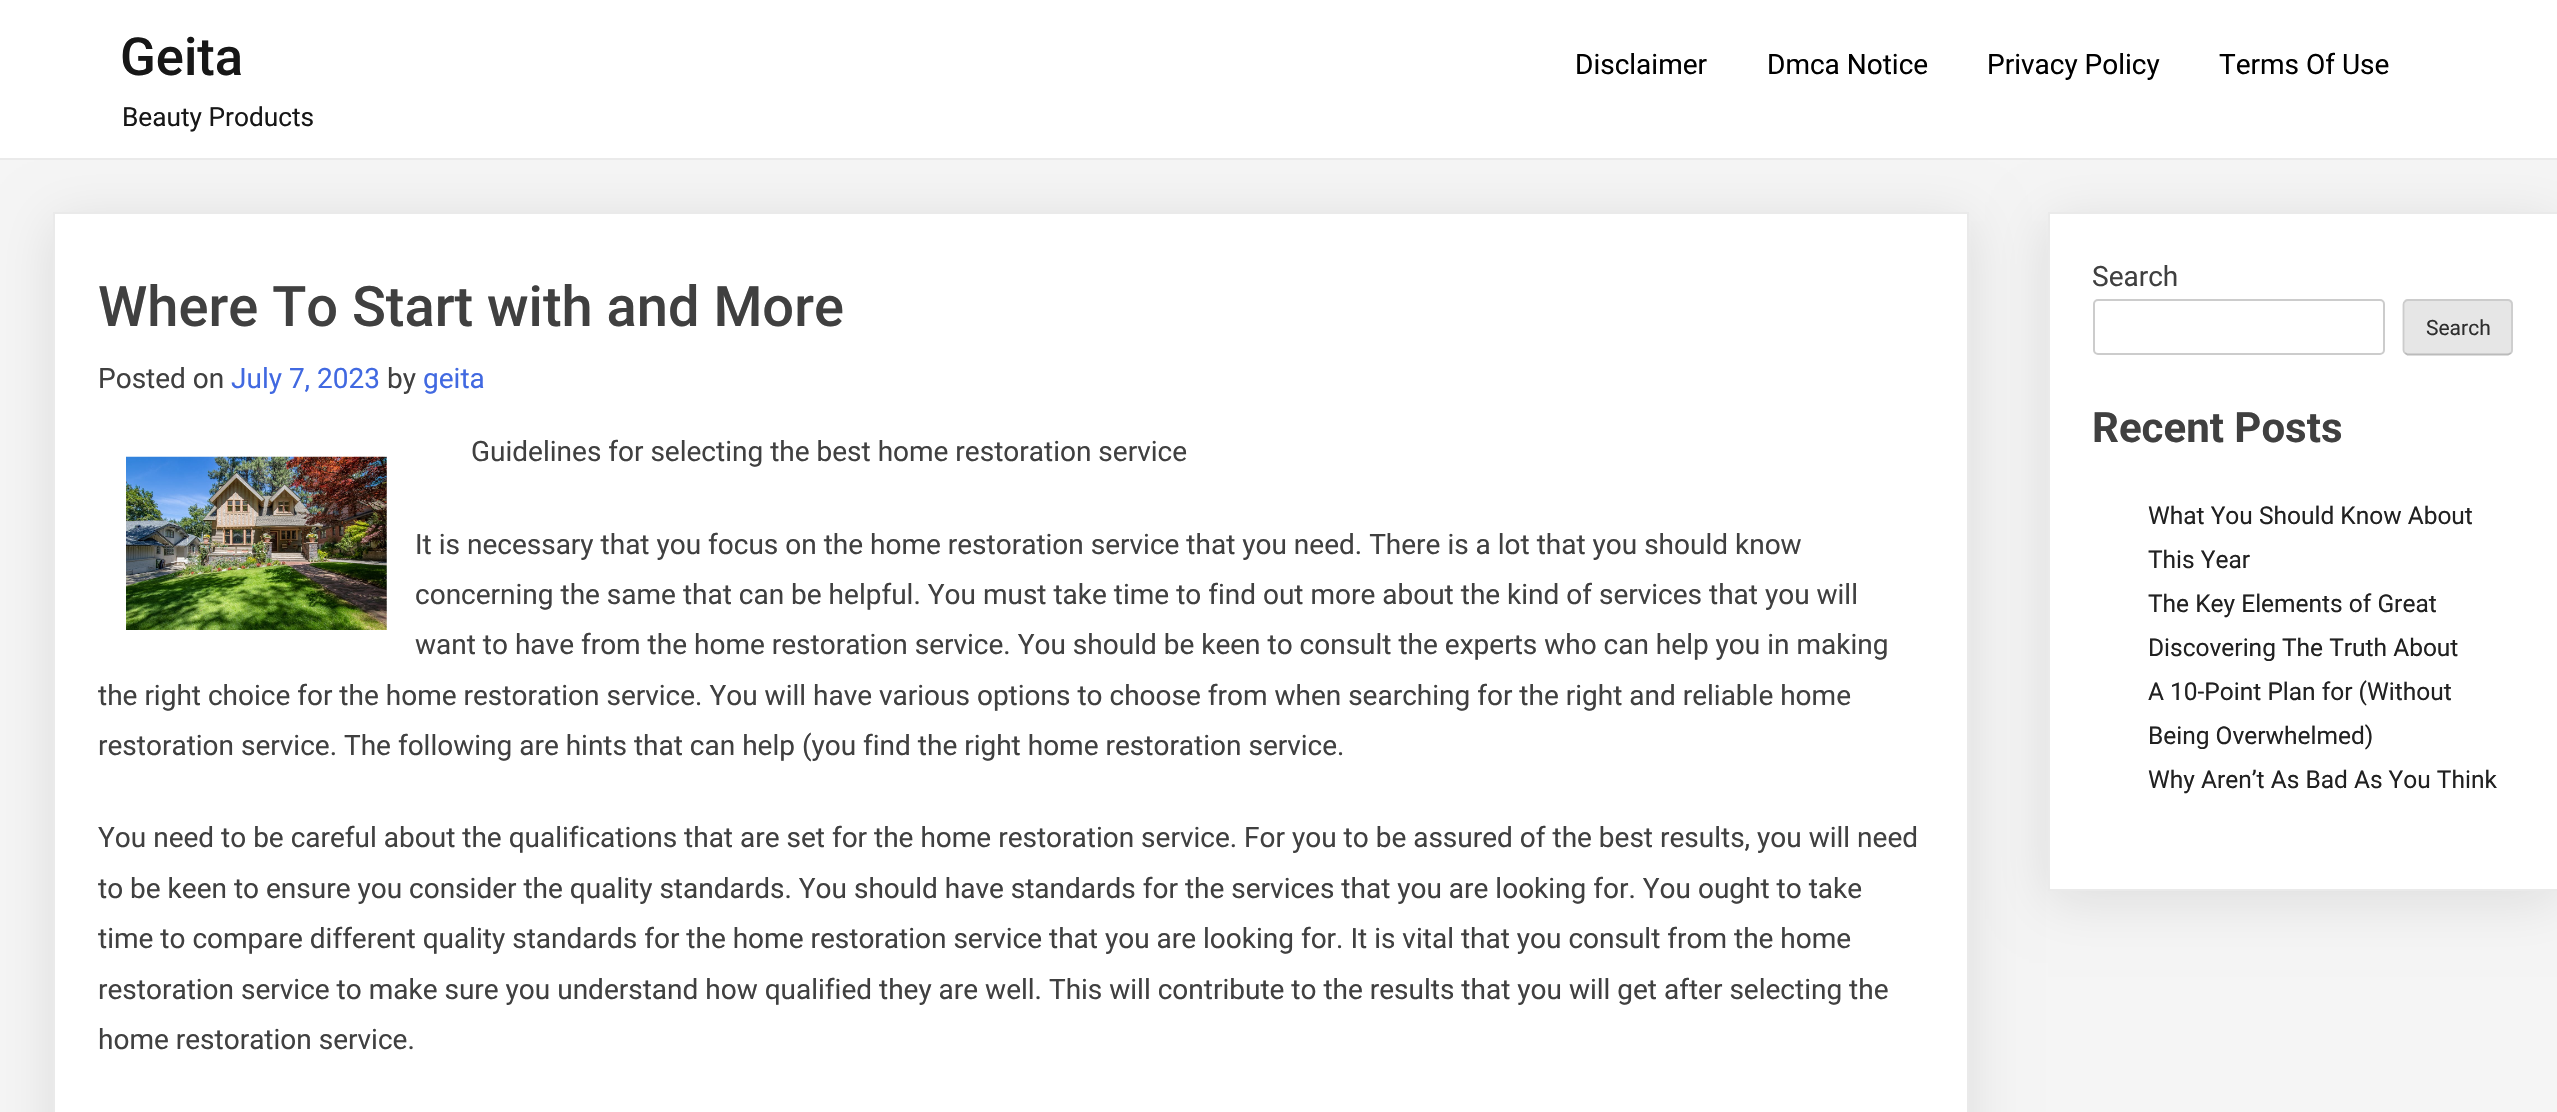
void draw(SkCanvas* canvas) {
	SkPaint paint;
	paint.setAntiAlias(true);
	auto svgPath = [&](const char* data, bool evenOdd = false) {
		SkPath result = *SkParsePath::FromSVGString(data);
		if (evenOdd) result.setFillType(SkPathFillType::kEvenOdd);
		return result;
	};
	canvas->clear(0xfff5f5f5);
	paint.setColor(0x1a000000);
	paint.setMaskFilter(SkMaskFilter::MakeBlur(kNormal_SkBlurStyle, 26));
	canvas->drawRect(SkRect::MakeXYWH(53, 221, 1916, 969), paint);
	paint.setMaskFilter(nullptr);
	paint.setMaskFilter(SkMaskFilter::MakeBlur(kNormal_SkBlurStyle, 26));
	canvas->drawRect(SkRect::MakeXYWH(2048, 221, 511, 679), paint);
	paint.setMaskFilter(nullptr);
	paint.setColor(0xffffffff);
	canvas->drawRect(SkRect::MakeXYWH(0, 0, 2557, 158), paint);
	paint.setColor(0xffeaeaea);
	canvas->drawRect(SkRect::MakeXYWH(0, 158, 2557, 2), paint);
	SkFont f1(fontMgr->matchFamilyStyle("Roboto", SkFontStyle(500, SkFontStyle::kNormal_Width, SkFontStyle::kUpright_Slant)), 52.5);
	f1.setSubpixel(true);
	paint.setColor(0xff171717);
	canvas->drawString("Geita", 120, 75, f1, paint);
	SkFont f2(fontMgr->matchFamilyStyle("Roboto", SkFontStyle::Normal()), 26.25);
	f2.setSubpixel(true);
	canvas->drawString("Beauty Products", 122, 126, f2, paint);
	SkFont f3(fontMgr->matchFamilyStyle("Roboto", SkFontStyle::Normal()), 28);
	f3.setSubpixel(true);
	paint.setColor(0xff000000);
	canvas->drawString("Disclaimer", 1575, 74, f3, paint);
	canvas->drawString("Dmca Notice", 1767, 74, f3, paint);
	canvas->drawString("Privacy Policy", 1987, 74, f3, paint);
	canvas->drawString("Terms Of Use", 2219, 74, f3, paint);
	paint.setColor(0xffffffff);
	canvas->drawRect(SkRect::MakeXYWH(54, 213, 1914, 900), paint);
	paint.setStroke(true);
	paint.setStrokeWidth(2);
	paint.setColor(0xffeaeaea);
	canvas->drawRect(SkRect::MakeXYWH(54, 213, 1914, 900), paint);
	SkFont f4(fontMgr->matchFamilyStyle("Roboto", SkFontStyle(500, SkFontStyle::kNormal_Width, SkFontStyle::kUpright_Slant)), 56);
	f4.setSubpixel(true);
	paint.setStroke(false);
	paint.setColor(0xff404040);
	canvas->drawString("Where To Start with and More", 98, 326, f4, paint);
	canvas->drawString("Posted on", 98, 388, f3, paint);
	paint.setColor(0xff4169e1);
	canvas->drawString("July 7, 2023", 231, 388, f3, paint);
	paint.setColor(0xff404040);
	canvas->drawString("by", 387, 388, f3, paint);
	paint.setColor(0xff4169e1);
	canvas->drawString("geita", 423, 388, f3, paint);
	paint.setColor(0xff404040);
	canvas->drawString("Guidelines for selecting the best home restoration service", 471, 461, f3, paint);
	canvas->drawImageRect(SkImages::DeferredFromEncodedData(SkData::MakeFromFileName("img1.png")), SkRect::MakeXYWH(126, 456, 261, 174), SkSamplingOptions());
	canvas->drawString("It is necessary that you focus on the home restoration service that you need. There is a lot that you should know", 415, 554, f3, paint);
	canvas->drawString("concerning the same that can be helpful. You must take time to find out more about the kind of services that you will", 415, 604, f3, paint);
	canvas->drawString("want to have from the home restoration service. You should be keen to consult the experts who can help you in making", 415, 654, f3, paint);
	canvas->drawString("the right choice for the home restoration service. You will have various options to choose from when searching for the right and reliable home", 98, 705, f3, paint);
	canvas->drawString("restoration service. The following are hints that can help (you find the right home restoration service.", 98, 755, f3, paint);
	canvas->drawString("You need to be careful about the qualifications that are set for the home restoration service. For you to be assured of the best results, you will need", 98, 847, f3, paint);
	canvas->drawString("to be keen to ensure you consider the quality standards. You should have standards for the services that you are looking for. You ought to take", 98, 898, f3, paint);
	canvas->drawString("time to compare different quality standards for the home restoration service that you are looking for. It is vital that you consult from the home", 98, 948, f3, paint);
	canvas->drawString("restoration service to make sure you understand how qualified they are well. This will contribute to the results that you will get after selecting the", 98, 999, f3, paint);
	canvas->drawString("home restoration service.", 98, 1049, f3, paint);
	paint.setColor(0xffffffff);
	canvas->drawRect(SkRect::MakeXYWH(2049, 213, 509, 677), paint);
	paint.setStroke(true);
	paint.setColor(0xffeaeaea);
	canvas->drawRect(SkRect::MakeXYWH(2049, 213, 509, 677), paint);
	paint.setStroke(false);
	paint.setColor(0xff404040);
	canvas->drawString("Search", 2092, 286, f3, paint);
	paint.setStroke(true);
	paint.setColor(0xffcccccc);
	canvas->drawRoundRect(SkRect::MakeXYWH(2094, 300, 290, 54), 4, 4, paint);
	paint.setStroke(false);
	paint.setColor(0xffe6e6e6);
	canvas->drawRoundRect(SkRect::MakeXYWH(2403, 299, 110, 56), 5, 5, paint);
	paint.setStroke(true);
	paint.setStrokeWidth(1.8);
	paint.setColor(0xffbbbbbb);
	canvas->drawPath(svgPath("M2511 353L2508 354.5H2407.5L2405 353"), paint);
	paint.setColor(0xffcccccc);
	canvas->drawPath(svgPath("M2405 353C2404 352.5 2403.5 351 2403.5 350V304.5C2403.5 303.5 2404 302 2405 301.5C2405.5 300.5 2407 300 2408 300H2508C2509 300 2510 300.5 2511 301.5C2511.5 302 2512 303.5 2512 304.5V350C2512 351 2511.5 352.5 2511 353"), paint);
	SkFont f5(fontMgr->matchFamilyStyle("Roboto", SkFontStyle::Normal()), 21);
	f5.setSubpixel(true);
	paint.setStroke(false);
	paint.setColor(0xff2e2e2e);
	canvas->drawString("Search", 2426, 335, f5, paint);
	SkFont f6(fontMgr->matchFamilyStyle("Roboto", SkFontStyle::Bold()), 42);
	f6.setSubpixel(true);
	paint.setColor(0xff404040);
	canvas->drawString("Recent Posts", 2092, 442, f6, paint);
	SkFont f7(fontMgr->matchFamilyStyle("Roboto", SkFontStyle::Normal()), 24.5);
	f7.setSubpixel(true);
	paint.setColor(0xff212121);
	canvas->drawString("What You Should Know About", 2148, 524, f7, paint);
	canvas->drawString("This Year", 2148, 568, f7, paint);
	canvas->drawString("The Key Elements of Great", 2148, 612, f7, paint);
	canvas->drawString("Discovering The Truth About", 2148, 656, f7, paint);
	canvas->drawString("A 10-Point Plan for (Without", 2148, 700, f7, paint);
	canvas->drawString("Being Overwhelmed)", 2148, 744, f7, paint);
	canvas->drawString("Why Aren’t As Bad As You Think", 2148, 788, f7, paint);
}
